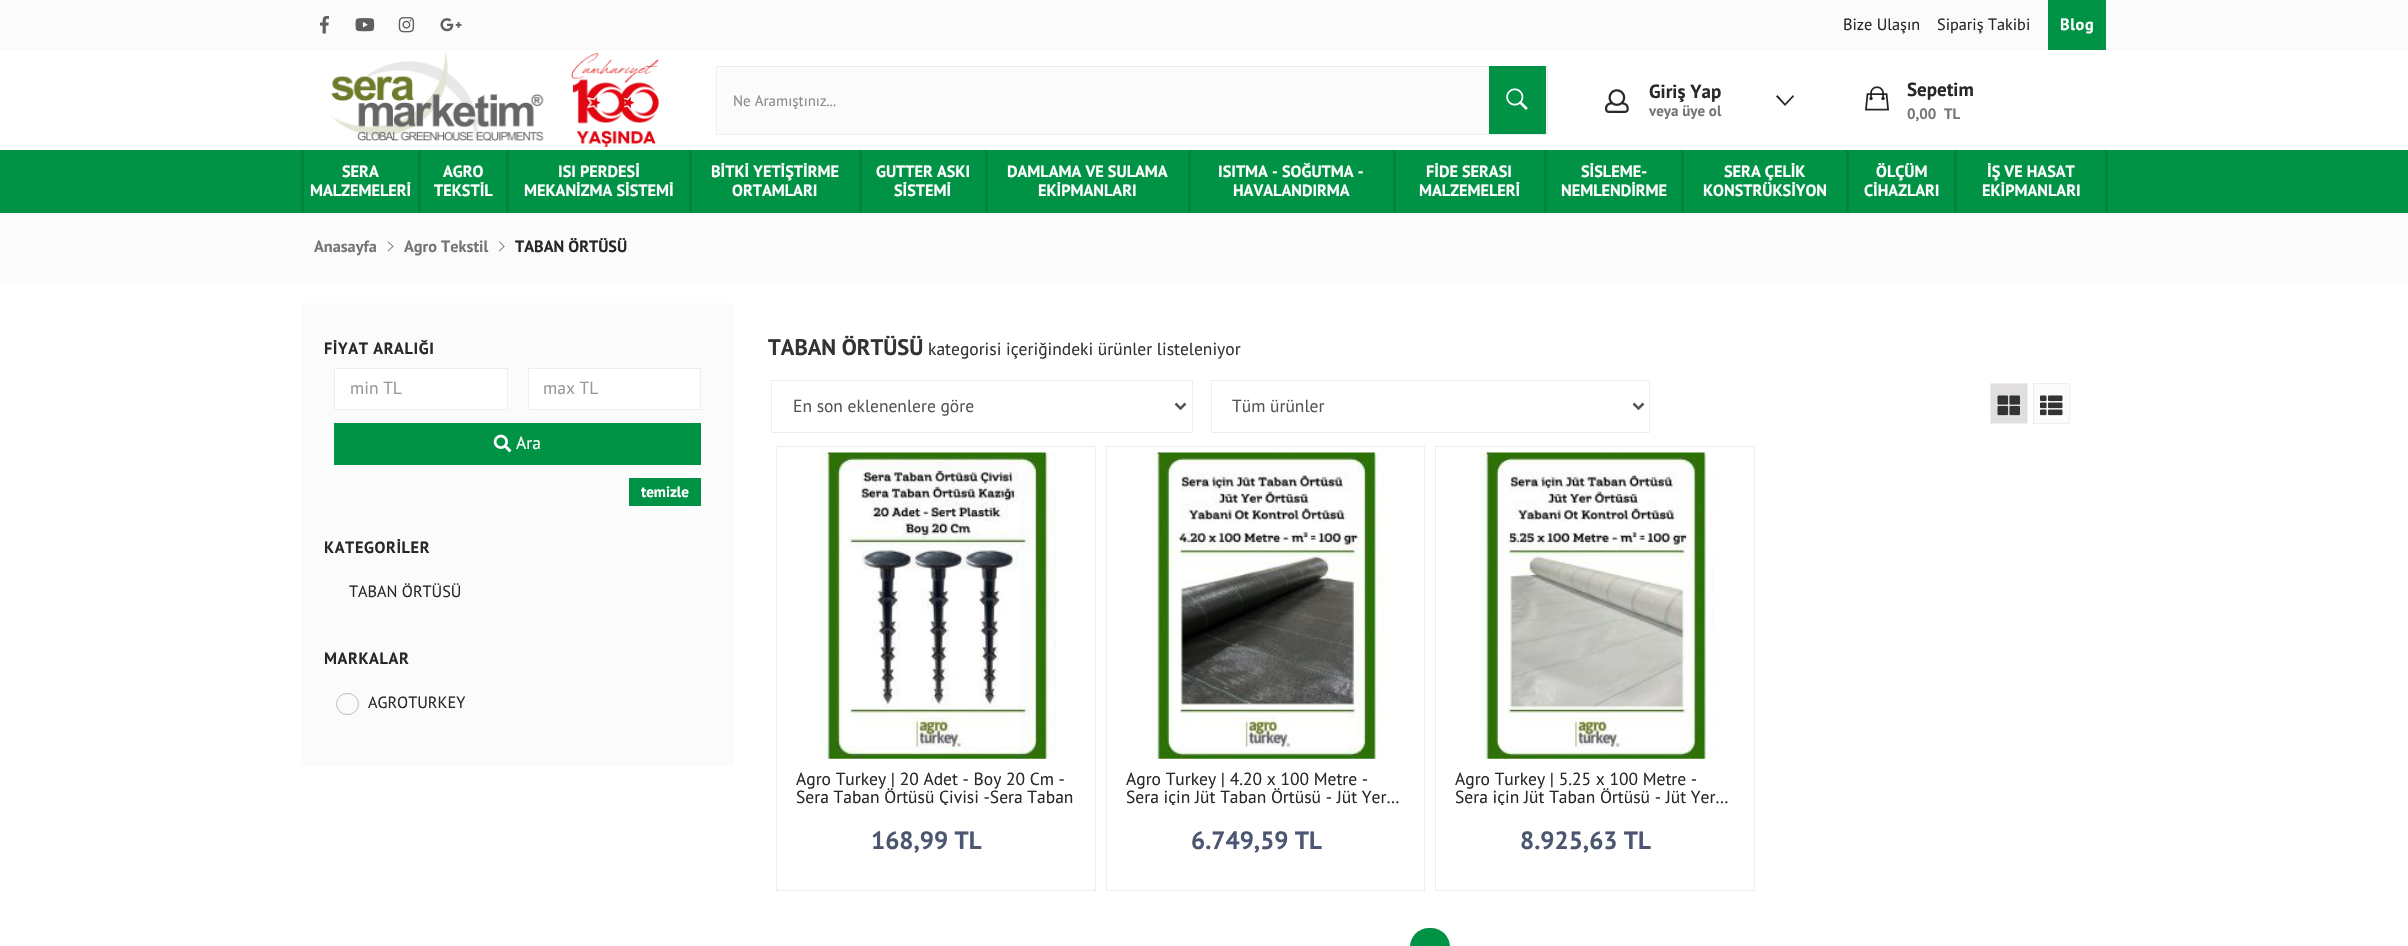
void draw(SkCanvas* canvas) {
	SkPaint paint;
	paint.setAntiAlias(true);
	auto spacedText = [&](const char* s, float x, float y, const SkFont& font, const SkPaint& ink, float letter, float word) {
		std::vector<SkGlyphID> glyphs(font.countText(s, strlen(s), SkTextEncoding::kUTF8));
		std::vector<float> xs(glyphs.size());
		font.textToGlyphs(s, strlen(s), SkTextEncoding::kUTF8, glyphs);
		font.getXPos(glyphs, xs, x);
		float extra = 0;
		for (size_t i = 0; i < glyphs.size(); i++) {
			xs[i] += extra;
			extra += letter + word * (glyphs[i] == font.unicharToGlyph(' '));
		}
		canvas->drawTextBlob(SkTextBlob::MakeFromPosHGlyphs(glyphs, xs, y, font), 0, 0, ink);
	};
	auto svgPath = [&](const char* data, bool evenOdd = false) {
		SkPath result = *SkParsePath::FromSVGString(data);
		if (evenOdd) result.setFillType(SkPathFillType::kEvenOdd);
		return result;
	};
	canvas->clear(0xffffffff);
	paint.setColor(0xfffbfbfb);
	canvas->drawRect(SkRect::MakeXYWH(0, 0, 2408, 49), paint);
	paint.setColor(0xfff7f7f7);
	canvas->drawRect(SkRect::MakeXYWH(0, 49, 2408, 1), paint);
	canvas->drawImageRect(SkImages::DeferredFromEncodedData(SkData::MakeFromFileName("img1.png")), SkRect::MakeXYWH(320, 15, 9, 19), SkSamplingOptions());
	canvas->drawImageRect(SkImages::DeferredFromEncodedData(SkData::MakeFromFileName("img2.png")), SkRect::MakeXYWH(355, 18, 20, 14), SkSamplingOptions());
	canvas->drawImageRect(SkImages::DeferredFromEncodedData(SkData::MakeFromFileName("img3.png")), SkRect::MakeXYWH(398, 17, 17, 16), SkSamplingOptions());
	canvas->drawImageRect(SkImages::DeferredFromEncodedData(SkData::MakeFromFileName("img4.png")), SkRect::MakeXYWH(440, 18, 22, 14), SkSamplingOptions());
	SkFont f1(fontMgr->matchFamilyStyle("PT Sans", SkFontStyle::Normal()), 16.25);
	f1.setSubpixel(true);
	paint.setColor(0xff282828);
	canvas->drawString("Bize Ulaşın", 1843, 30, f1, paint);
	canvas->drawString("Sipariş Takibi", 1937, 30, f1, paint);
	paint.setColor(0xff009245);
	canvas->drawRect(SkRect::MakeXYWH(2048, 0, 58, 50), paint);
	SkFont f2(fontMgr->matchFamilyStyle("PT Sans", SkFontStyle::Bold()), 16.25);
	f2.setSubpixel(true);
	paint.setColor(0xffffffff);
	spacedText("Blog", 2060, 30, f2, paint, 0.6, 0);
	canvas->drawImageRect(SkImages::DeferredFromEncodedData(SkData::MakeFromFileName("img5.png")), SkRect::MakeXYWH(331, 52, 328, 96), SkSamplingOptions());
	paint.setStroke(true);
	paint.setStrokeWidth(1);
	paint.setColor(0xffebedf1);
	canvas->drawRect(SkRect::MakeXYWH(716.5, 66.5, 831, 68), paint);
	paint.setStroke(false);
	paint.setColor(0xfffbfbfb);
	canvas->drawRect(SkRect::MakeXYWH(718, 68, 771, 66), paint);
	SkFont f3(fontMgr->matchFamilyStyle("PT Sans", SkFontStyle::Normal()), 15);
	f3.setSubpixel(true);
	paint.setColor(0xff8a8a8a);
	canvas->drawString("Ne Aramıştınız...", 733, 106, f3, paint);
	paint.setColor(0xff009245);
	canvas->drawRect(SkRect::MakeXYWH(1489, 66, 57, 68), paint);
	canvas->drawImageRect(SkImages::DeferredFromEncodedData(SkData::MakeFromFileName("img6.png")), SkRect::MakeXYWH(1506, 88, 22, 22), SkSamplingOptions());
	canvas->drawImageRect(SkImages::DeferredFromEncodedData(SkData::MakeFromFileName("img7.png")), SkRect::MakeXYWH(1605, 89, 24, 24), SkSamplingOptions());
	SkFont f4(fontMgr->matchFamilyStyle("PT Sans", SkFontStyle::Bold()), 19);
	f4.setSubpixel(true);
	paint.setColor(0xff282828);
	canvas->drawString("Giriş Yap", 1649, 98, f4, paint);
	SkFont f5(fontMgr->matchFamilyStyle("PT Sans", SkFontStyle::Bold()), 15);
	f5.setSubpixel(true);
	paint.setColor(0xff757575);
	canvas->drawString("veya üye ol", 1649, 116, f5, paint);
	paint.setColor(0xff282828);
	canvas->drawPath(svgPath("M1793 95L1794 96.5L1785 106L1776 96.5L1777.5 95L1785 103.5Z"), paint);
	canvas->drawImageRect(SkImages::DeferredFromEncodedData(SkData::MakeFromFileName("img8.png")), SkRect::MakeXYWH(1865, 86, 24, 25), SkSamplingOptions());
	canvas->drawString("Sepetim", 1907, 96, f4, paint);
	paint.setColor(0xff757575);
	canvas->drawString("0,00  TL", 1907, 119, f5, paint);
	paint.setColor(0xff009245);
	canvas->drawRect(SkRect::MakeXYWH(0, 150, 2408, 63), paint);
	paint.setColor(0xff00833e);
	canvas->drawRect(SkRect::MakeXYWH(418, 150, 3, 63), paint);
	canvas->drawRect(SkRect::MakeXYWH(301, 150, 3, 63), paint);
	paint.setColor(0xffffffff);
	canvas->drawString("SERA", 342, 177, f2, paint);
	canvas->drawString("MALZEMELERİ", 310, 196, f2, paint);
	paint.setColor(0xff00833e);
	canvas->drawRect(SkRect::MakeXYWH(506, 150, 3, 63), paint);
	paint.setColor(0xffffffff);
	canvas->drawString("AGRO", 443, 177, f2, paint);
	canvas->drawString("TEKSTİL", 434, 196, f2, paint);
	paint.setColor(0xff00833e);
	canvas->drawRect(SkRect::MakeXYWH(689, 150, 3, 63), paint);
	paint.setColor(0xffffffff);
	canvas->drawString("ISI PERDESİ", 558, 177, f2, paint);
	canvas->drawString("MEKANİZMA SİSTEMİ", 524, 196, f2, paint);
	paint.setColor(0xff00833e);
	canvas->drawRect(SkRect::MakeXYWH(859, 150, 3, 63), paint);
	paint.setColor(0xffffffff);
	canvas->drawString("BİTKİ YETİŞTİRME", 711, 177, f2, paint);
	canvas->drawString("ORTAMLARI", 732, 196, f2, paint);
	paint.setColor(0xff00833e);
	canvas->drawRect(SkRect::MakeXYWH(985, 150, 3, 63), paint);
	paint.setColor(0xffffffff);
	canvas->drawString("GUTTER ASKI", 876, 177, f2, paint);
	canvas->drawString("SİSTEMİ", 894, 196, f2, paint);
	paint.setColor(0xff00833e);
	canvas->drawRect(SkRect::MakeXYWH(1188, 150, 3, 63), paint);
	paint.setColor(0xffffffff);
	canvas->drawString("DAMLAMA VE SULAMA", 1007, 177, f2, paint);
	canvas->drawString("EKİPMANLARI", 1038, 196, f2, paint);
	paint.setColor(0xff00833e);
	canvas->drawRect(SkRect::MakeXYWH(1393, 150, 3, 63), paint);
	paint.setColor(0xffffffff);
	canvas->drawString("ISITMA - SOĞUTMA -", 1218, 177, f2, paint);
	canvas->drawString("HAVALANDIRMA", 1233, 196, f2, paint);
	paint.setColor(0xff00833e);
	canvas->drawRect(SkRect::MakeXYWH(1544, 150, 3, 63), paint);
	paint.setColor(0xffffffff);
	canvas->drawString("FİDE SERASI", 1426, 177, f2, paint);
	canvas->drawString("MALZEMELERİ", 1419, 196, f2, paint);
	paint.setColor(0xff00833e);
	canvas->drawRect(SkRect::MakeXYWH(1681, 150, 3, 63), paint);
	paint.setColor(0xffffffff);
	canvas->drawString("SİSLEME-", 1581, 177, f2, paint);
	canvas->drawString("NEMLENDİRME", 1561, 196, f2, paint);
	paint.setColor(0xff00833e);
	canvas->drawRect(SkRect::MakeXYWH(1846, 150, 3, 63), paint);
	paint.setColor(0xffffffff);
	canvas->drawString("SERA ÇELİK", 1724, 177, f2, paint);
	canvas->drawString("KONSTRÜKSİYON", 1703, 196, f2, paint);
	paint.setColor(0xff00833e);
	canvas->drawRect(SkRect::MakeXYWH(1954, 150, 3, 63), paint);
	paint.setColor(0xffffffff);
	canvas->drawString("ÖLÇÜM", 1876, 177, f2, paint);
	canvas->drawString("CİHAZLARI", 1864, 196, f2, paint);
	paint.setColor(0xff00833e);
	canvas->drawRect(SkRect::MakeXYWH(2105, 150, 3, 63), paint);
	paint.setColor(0xffffffff);
	canvas->drawString("İŞ VE HASAT", 1987, 177, f2, paint);
	canvas->drawString("EKİPMANLARI", 1982, 196, f2, paint);
	paint.setColor(0xfffbfbfb);
	canvas->drawRect(SkRect::MakeXYWH(0, 213, 2408, 71), paint);
	paint.setColor(0xff757575);
	canvas->drawString("Anasayfa", 314, 252, f2, paint);
	canvas->drawImageRect(SkImages::DeferredFromEncodedData(SkData::MakeFromFileName("img9.png")), SkRect::MakeXYWH(387, 241, 7, 11), SkSamplingOptions());
	canvas->drawString("Agro Tekstil", 404, 252, f2, paint);
	canvas->drawImageRect(SkImages::DeferredFromEncodedData(SkData::MakeFromFileName("img10.png")), SkRect::MakeXYWH(498, 241, 7, 11), SkSamplingOptions());
	paint.setColor(0xff282828);
	canvas->drawString("TABAN ÖRTÜSÜ", 515, 252, f2, paint);
	paint.setColor(0xfffbfbfb);
	canvas->drawRect(SkRect::MakeXYWH(301, 303, 433, 463), paint);
	paint.setColor(0xff282828);
	spacedText("FİYAT ARALIĞI", 324, 354, f2, paint, 0.6, 0);
	paint.setColor(0xffffffff);
	canvas->drawRect(SkRect::MakeXYWH(334.5, 368.5, 173, 41), paint);
	paint.setStroke(true);
	paint.setColor(0xffeeeeee);
	canvas->drawRect(SkRect::MakeXYWH(334.5, 368.5, 173, 41), paint);
	SkFont f6(fontMgr->matchFamilyStyle("PT Sans", SkFontStyle::Normal()), 17.5);
	f6.setSubpixel(true);
	paint.setStroke(false);
	paint.setColor(0xff999999);
	canvas->drawString("min TL", 350, 394, f6, paint);
	paint.setColor(0xffffffff);
	canvas->drawRect(SkRect::MakeXYWH(528.5, 368.5, 172, 41), paint);
	paint.setStroke(true);
	paint.setColor(0xffeeeeee);
	canvas->drawRect(SkRect::MakeXYWH(528.5, 368.5, 172, 41), paint);
	paint.setStroke(false);
	paint.setColor(0xff999999);
	canvas->drawString("max TL", 543, 394, f6, paint);
	paint.setColor(0xff009245);
	canvas->drawRect(SkRect::MakeXYWH(334, 423, 367, 42), paint);
	canvas->drawImageRect(SkImages::DeferredFromEncodedData(SkData::MakeFromFileName("img11.png")), SkRect::MakeXYWH(493, 434, 19, 19), SkSamplingOptions());
	paint.setColor(0xffffffff);
	canvas->drawString("Ara", 516, 449, f6, paint);
	paint.setColor(0xff009245);
	canvas->drawRect(SkRect::MakeXYWH(629, 478, 72, 28), paint);
	paint.setColor(0xffffffff);
	canvas->drawString("temizle", 641, 497, f5, paint);
	paint.setColor(0xff282828);
	spacedText("KATEGORİLER", 324, 553, f2, paint, 0.6, 0);
	canvas->drawString("TABAN ÖRTÜSÜ", 349, 597, f1, paint);
	spacedText("MARKALAR", 324, 664, f2, paint, 0.6, 0);
	paint.setStroke(true);
	paint.setColor(0xffbfbfbf);
	canvas->drawRoundRect(SkRect::MakeXYWH(336.5, 693.5, 22, 21), 10.5, 10.5, paint);
	paint.setStroke(false);
	paint.setColor(0xff282828);
	canvas->drawString("AGROTURKEY", 368, 708, f1, paint);
	SkFont f7(fontMgr->matchFamilyStyle("PT Sans", SkFontStyle::Bold()), 22.5);
	f7.setSubpixel(true);
	paint.setColor(0xff333333);
	canvas->drawString("TABAN ÖRTÜSÜ", 768, 355, f7, paint);
	canvas->drawString("kategorisi içeriğindeki ürünler listeleniyor", 928, 355, f6, paint);
	paint.setStroke(true);
	paint.setColor(0xffeeeeee);
	canvas->drawRect(SkRect::MakeXYWH(771.5, 380.5, 421, 52), paint);
	paint.setStrokeWidth(2.5);
	paint.setColor(0xff555555);
	canvas->drawPath(svgPath("M1175.5 403.5L1180.5 408.5L1185.5 403.5"), paint);
	paint.setStroke(false);
	canvas->drawString("En son eklenenlere göre", 793, 412, f6, paint);
	paint.setStroke(true);
	paint.setStrokeWidth(1);
	paint.setColor(0xffeeeeee);
	canvas->drawRect(SkRect::MakeXYWH(1211.5, 380.5, 438, 52), paint);
	paint.setStrokeWidth(2.5);
	paint.setColor(0xff555555);
	canvas->drawPath(svgPath("M1633.5 403.5L1638.5 408.5L1643.5 403.5"), paint);
	paint.setStroke(false);
	canvas->drawString("Tüm ürünler", 1232, 412, f6, paint);
	paint.setColor(0xffe0dede);
	canvas->drawRect(SkRect::MakeXYWH(1990.5, 383.5, 37, 40), paint);
	paint.setStroke(true);
	paint.setStrokeWidth(1);
	paint.setColor(0xffeeeeee);
	canvas->drawRect(SkRect::MakeXYWH(1990.5, 383.5, 37, 40), paint);
	canvas->drawImageRect(SkImages::DeferredFromEncodedData(SkData::MakeFromFileName("img12.png")), SkRect::MakeXYWH(1997, 395, 23, 21), SkSamplingOptions());
	paint.setStroke(false);
	paint.setColor(0xfffbfbfb);
	canvas->drawRect(SkRect::MakeXYWH(2033.5, 383.5, 36, 40), paint);
	paint.setStroke(true);
	paint.setColor(0xffeeeeee);
	canvas->drawRect(SkRect::MakeXYWH(2033.5, 383.5, 36, 40), paint);
	canvas->drawImageRect(SkImages::DeferredFromEncodedData(SkData::MakeFromFileName("img13.png")), SkRect::MakeXYWH(2040, 395, 23, 21), SkSamplingOptions());
	canvas->drawRect(SkRect::MakeXYWH(776.5, 446.5, 319, 444), paint);
	canvas->drawImageRect(SkImages::DeferredFromEncodedData(SkData::MakeFromFileName("img14.png")), SkRect::MakeXYWH(821, 452, 235, 307), SkSamplingOptions());
	paint.setStroke(false);
	paint.setColor(0xff282828);
	canvas->drawString("Agro Turkey | 20 Adet - Boy 20 Cm -", 796, 785, f6, paint);
	canvas->save();
	canvas->clipRect(SkRect::MakeXYWH(796, 770, 280, 35));
	canvas->drawString("Sera Taban Örtüsü Çivisi -Sera Taban", 796, 803, f6, paint);
	canvas->restore();
	SkFont f8(fontMgr->matchFamilyStyle("PT Sans", SkFontStyle::Bold()), 25);
	f8.setSubpixel(true);
	paint.setColor(0xff4d5671);
	canvas->drawString("168,99 TL", 871, 849, f8, paint);
	paint.setStroke(true);
	paint.setColor(0xffeeeeee);
	canvas->drawRect(SkRect::MakeXYWH(1106.5, 446.5, 318, 444), paint);
	canvas->drawImageRect(SkImages::DeferredFromEncodedData(SkData::MakeFromFileName("img15.png")), SkRect::MakeXYWH(1151, 452, 234, 307), SkSamplingOptions());
	paint.setStroke(false);
	paint.setColor(0xff282828);
	canvas->drawString("Agro Turkey | 4.20 x 100 Metre -", 1126, 785, f6, paint);
	canvas->save();
	canvas->clipRect(SkRect::MakeXYWH(1126, 770, 279, 35));
	canvas->drawString("Sera için Jüt Taban Örtüsü - Jüt Yer…", 1126, 803, f6, paint);
	canvas->restore();
	paint.setColor(0xff4d5671);
	canvas->drawString("6.749,59 TL", 1191, 849, f8, paint);
	paint.setStroke(true);
	paint.setColor(0xffeeeeee);
	canvas->drawRect(SkRect::MakeXYWH(1435.5, 446.5, 319, 444), paint);
	canvas->drawImageRect(SkImages::DeferredFromEncodedData(SkData::MakeFromFileName("img16.png")), SkRect::MakeXYWH(1480, 452, 234, 307), SkSamplingOptions());
	paint.setStroke(false);
	paint.setColor(0xff282828);
	canvas->drawString("Agro Turkey | 5.25 x 100 Metre -", 1455, 785, f6, paint);
	canvas->save();
	canvas->clipRect(SkRect::MakeXYWH(1455, 770, 280, 35));
	canvas->drawString("Sera için Jüt Taban Örtüsü - Jüt Yer…", 1455, 803, f6, paint);
	canvas->restore();
	paint.setColor(0xff4d5671);
	canvas->drawString("8.925,63 TL", 1520, 849, f8, paint);
	paint.setColor(0xff009245);
	canvas->drawRoundRect(SkRect::MakeXYWH(1410, 928, 40, 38), 20, 20, paint);
}
